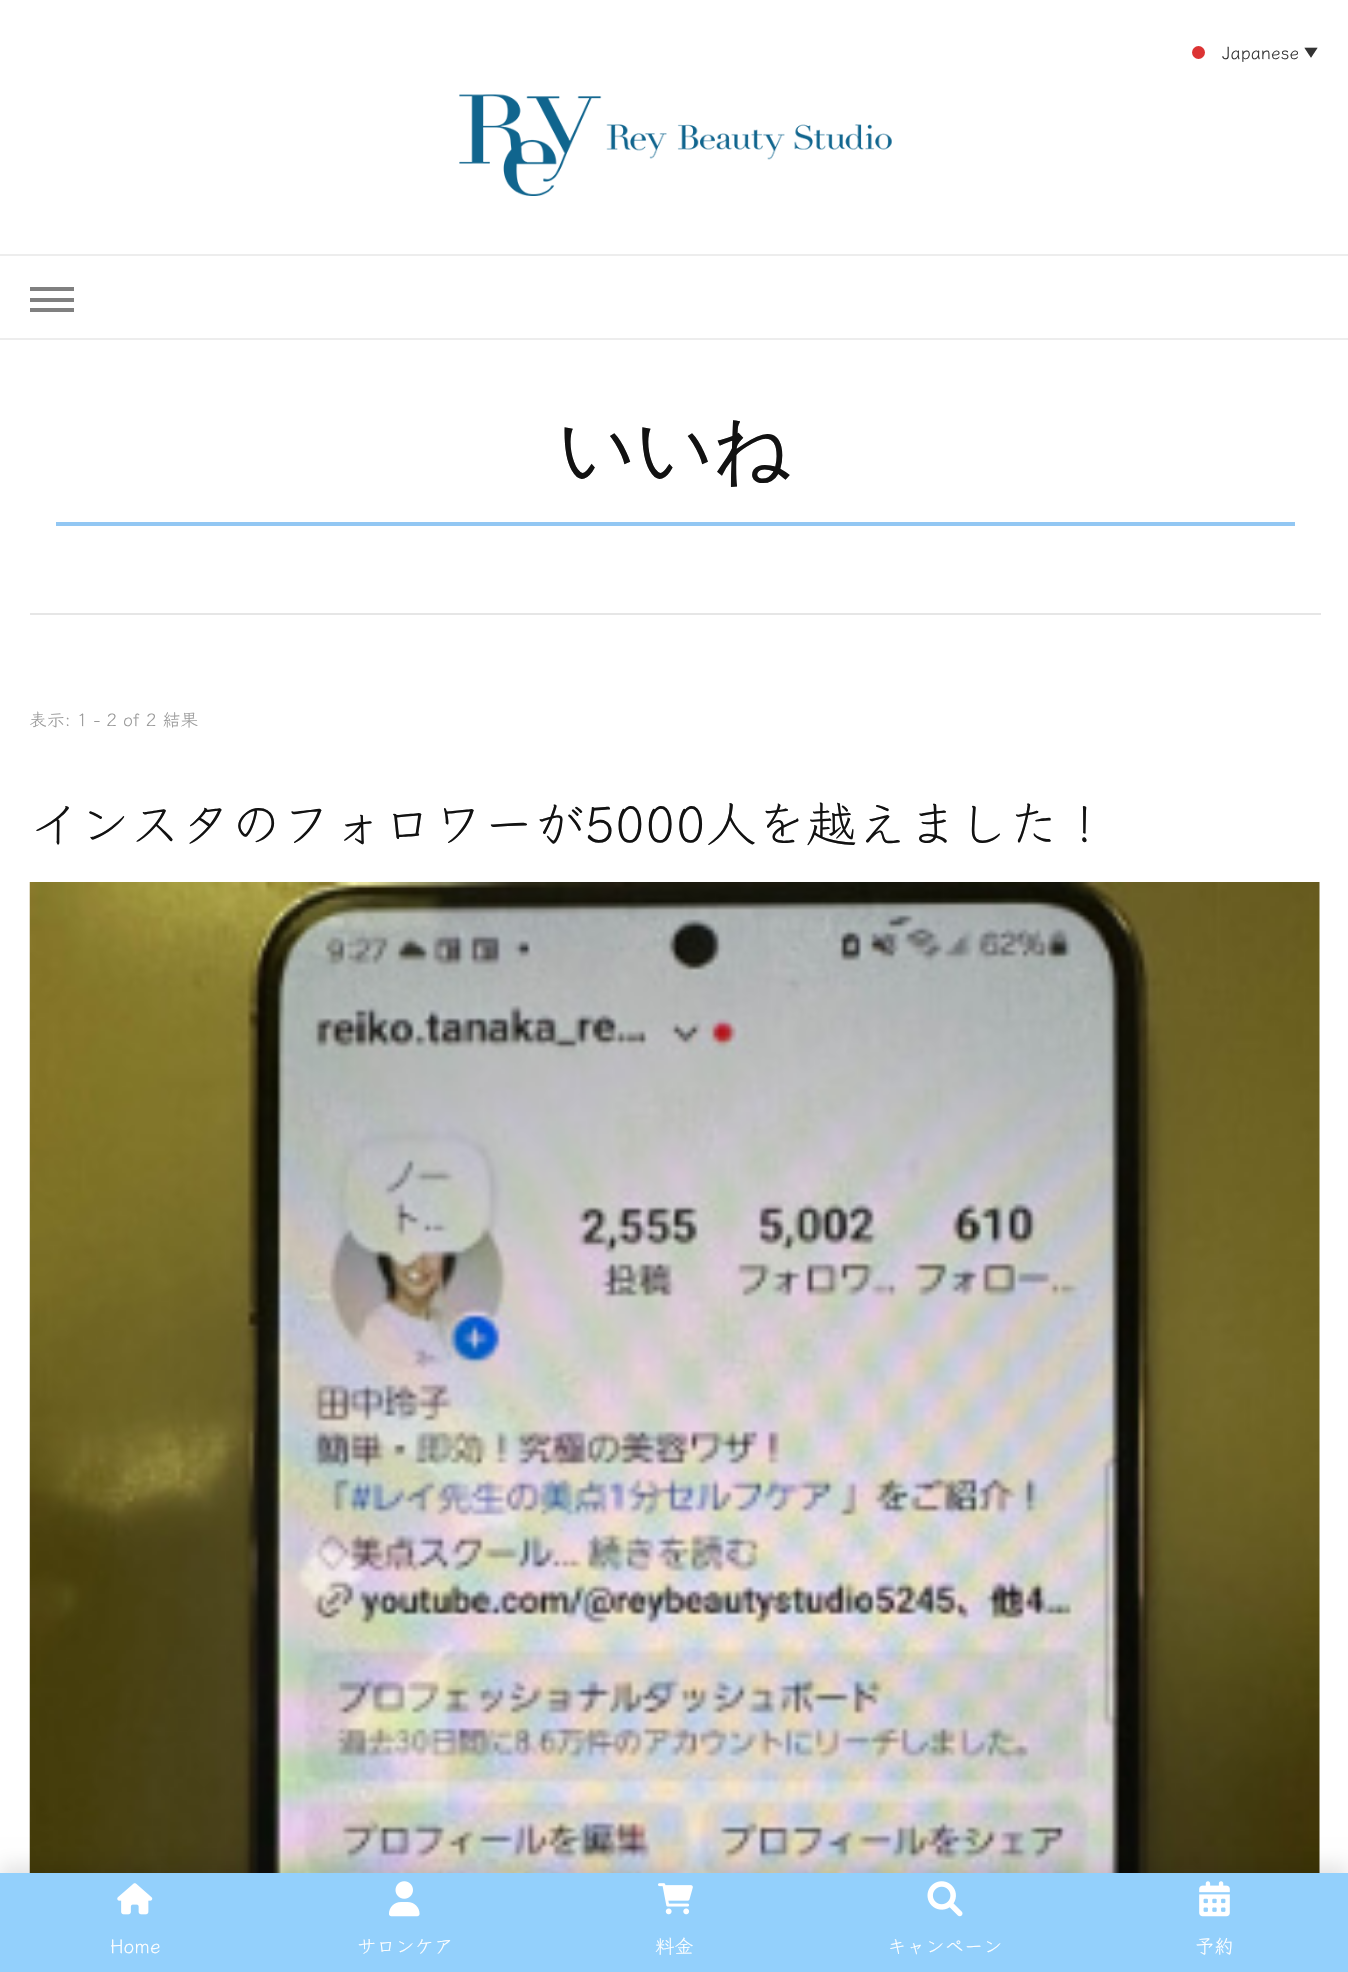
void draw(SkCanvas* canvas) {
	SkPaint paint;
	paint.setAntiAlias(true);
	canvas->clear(0xffffffff);
	SkFont f1(fontMgr->matchFamilyStyle("Klee One", SkFontStyle::Normal()), 17.5);
	f1.setSubpixel(true);
	paint.setColor(0xff333333);
	canvas->drawString("Japanese", 1222, 59, f1, paint);
	paint.setColor(0xffdc3333);
	canvas->drawCircle(1198.5, 52.5, 6.5, paint);
	SkFont f2(fontMgr->matchFamilyStyle("Klee One", SkFontStyle::Normal()), 14);
	f2.setSubpixel(true);
	paint.setColor(0xff333333);
	canvas->drawString("▼", 1304, 58, f2, paint);
	canvas->drawImageRect(SkImages::DeferredFromEncodedData(SkData::MakeFromFileName("img1.png")), SkRect::MakeXYWH(459, 94, 433, 102), SkSamplingOptions());
	paint.setColor(0xffededed);
	canvas->drawRect(SkRect::MakeXYWH(0, 254, 1348, 2), paint);
	canvas->drawRect(SkRect::MakeXYWH(0, 338, 1348, 2), paint);
	paint.setColor(0xff808080);
	canvas->drawRect(SkRect::MakeXYWH(30, 287, 44, 4), paint);
	canvas->drawRect(SkRect::MakeXYWH(30, 298, 44, 4), paint);
	canvas->drawRect(SkRect::MakeXYWH(30, 308, 44, 4), paint);
	paint.setColor(0xffe6e6e6);
	canvas->drawRect(SkRect::MakeXYWH(30, 613, 1291, 2), paint);
	paint.setColor(0xff92c7f3);
	canvas->drawRect(SkRect::MakeXYWH(56, 522, 1239, 4), paint);
	SkFont f3(fontMgr->matchFamilyStyle("WenQuanYi Zen Hei", SkFontStyle(500, SkFontStyle::kNormal_Width, SkFontStyle::kUpright_Slant)), 76);
	f3.setSubpixel(true);
	paint.setColor(0xff121212);
	canvas->drawString("いいね", 558, 475, f3, paint);
	SkFont f4(fontMgr->matchFamilyStyle("Klee One", SkFontStyle::Normal()), 17.75);
	f4.setSubpixel(true);
	paint.setColor(0xff999999);
	canvas->drawString("表示: 1 - 2 of 2 結果", 29, 726, f4, paint);
	SkFont f5(fontMgr->matchFamilyStyle("Klee One", SkFontStyle::Normal()), 50.5);
	f5.setSubpixel(true);
	paint.setColor(0xff121212);
	canvas->drawString("インスタのフォロワーが5000人を越えました！", 29, 842, f5, paint);
	canvas->drawImageRect(SkImages::DeferredFromEncodedData(SkData::MakeFromFileName("img2.png")), SkRect::MakeXYWH(29, 882, 1291, 991), SkSamplingOptions());
	paint.setColor(0x1a000000);
	paint.setMaskFilter(SkMaskFilter::MakeBlur(kNormal_SkBlurStyle, 9));
	canvas->drawRect(SkRect::MakeXYWH(0, 1864, 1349, 100), paint);
	paint.setMaskFilter(nullptr);
	paint.setColor(0xff93d0fc);
	canvas->drawRect(SkRect::MakeXYWH(0, 1873, 1348, 99), paint);
	canvas->drawImageRect(SkImages::DeferredFromEncodedData(SkData::MakeFromFileName("img3.png")), SkRect::MakeXYWH(117, 1883, 36, 32), SkSamplingOptions());
	SkFont f6(fontMgr->matchFamilyStyle("Klee One", SkFontStyle::Normal()), 19.25);
	f6.setSubpixel(true);
	paint.setColor(0xffffffff);
	canvas->drawString("Home", 110, 1953, f6, paint);
	canvas->drawImageRect(SkImages::DeferredFromEncodedData(SkData::MakeFromFileName("img4.png")), SkRect::MakeXYWH(389, 1881, 31, 36), SkSamplingOptions());
	canvas->drawString("サロンケア", 357, 1953, f6, paint);
	canvas->drawImageRect(SkImages::DeferredFromEncodedData(SkData::MakeFromFileName("img5.png")), SkRect::MakeXYWH(658, 1883, 35, 32), SkSamplingOptions());
	canvas->drawString("料金", 655, 1953, f6, paint);
	canvas->drawImageRect(SkImages::DeferredFromEncodedData(SkData::MakeFromFileName("img6.png")), SkRect::MakeXYWH(927, 1881, 36, 36), SkSamplingOptions());
	canvas->drawString("キャンペーン", 887, 1953, f6, paint);
	canvas->drawImageRect(SkImages::DeferredFromEncodedData(SkData::MakeFromFileName("img7.png")), SkRect::MakeXYWH(1199, 1881, 31, 36), SkSamplingOptions());
	canvas->drawString("予約", 1195, 1953, f6, paint);
}
